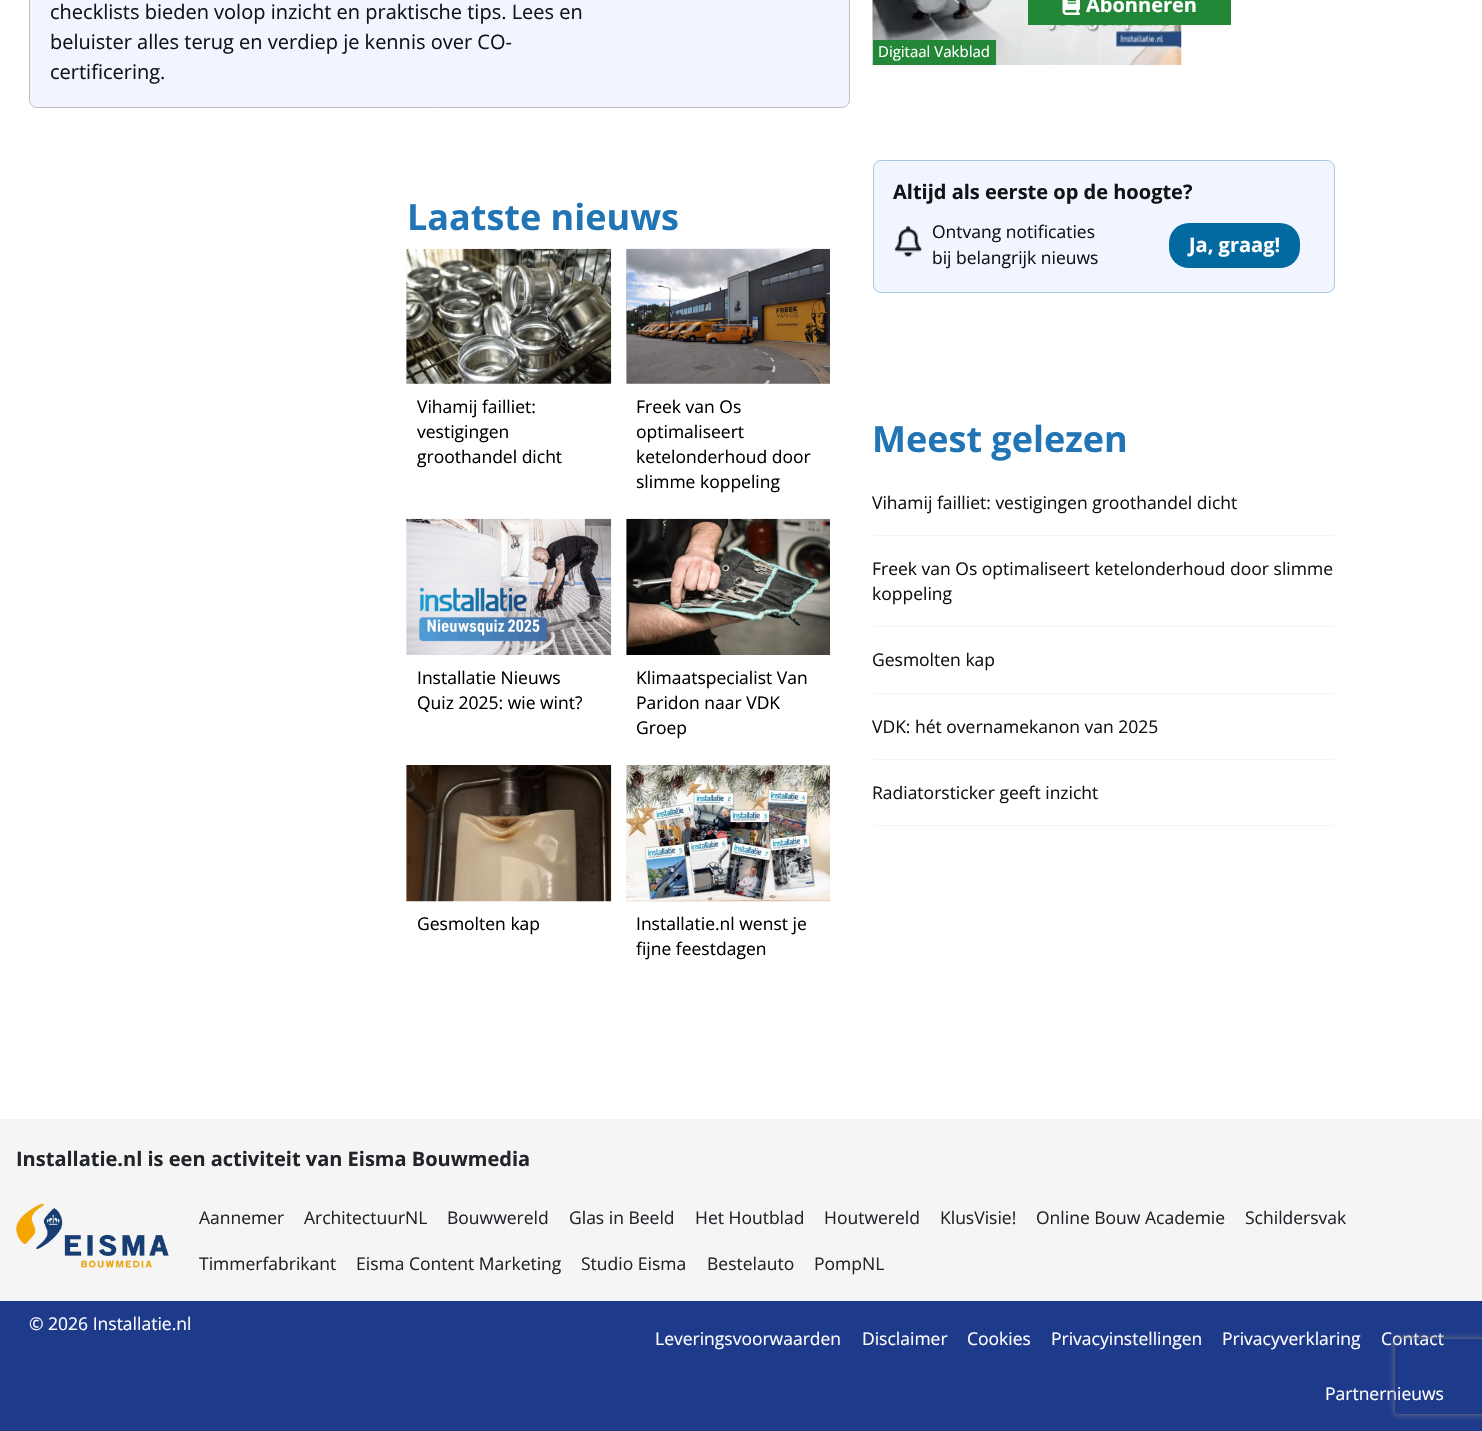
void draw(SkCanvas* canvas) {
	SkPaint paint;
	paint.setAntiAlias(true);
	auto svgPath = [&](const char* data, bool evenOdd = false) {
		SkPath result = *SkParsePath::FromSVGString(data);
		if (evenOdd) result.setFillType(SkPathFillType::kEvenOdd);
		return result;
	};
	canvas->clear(0xffffffff);
	paint.setColor(0xfff2f4ff);
	canvas->drawRoundRect(SkRect::MakeXYWH(29.5, -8.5, 820, 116), 7.5, 7.5, paint);
	paint.setStroke(true);
	paint.setStrokeWidth(1);
	paint.setColor(0xffc0c0c0);
	canvas->drawRoundRect(SkRect::MakeXYWH(29.5, -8.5, 820, 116), 7.5, 7.5, paint);
	SkFont f1(fontMgr->matchFamilyStyle("Open Sans", SkFontStyle::Normal()), 20);
	f1.setSubpixel(true);
	paint.setStroke(false);
	paint.setColor(0xff121314);
	canvas->drawString("checklists bieden volop inzicht en praktische tips. Lees en", 50, 19, f1, paint);
	canvas->drawString("beluister alles terug en verdiep je kennis over CO-", 50, 49, f1, paint);
	canvas->drawString("certificering.", 50, 79, f1, paint);
	SkFont f2(fontMgr->matchFamilyStyle("Open Sans", SkFontStyle::Bold()), 36);
	f2.setSubpixel(true);
	paint.setColor(0xff2275b5);
	canvas->drawString("Laatste nieuws", 407, 230, f2, paint);
	paint.setColor(0xfff5f5f5);
	canvas->drawRect(SkRect::MakeXYWH(406, 249, 205, 135), paint);
	canvas->drawImageRect(SkImages::DeferredFromEncodedData(SkData::MakeFromFileName("img1.png")), SkRect::MakeXYWH(406, 248, 206, 136), SkSamplingOptions());
	SkFont f3(fontMgr->matchFamilyStyle("Open Sans", SkFontStyle::Normal()), 17.5);
	f3.setSubpixel(true);
	paint.setColor(0xff000000);
	canvas->drawString("Vihamij failliet:", 417, 413, f3, paint);
	canvas->drawString("vestigingen", 417, 438, f3, paint);
	canvas->drawString("groothandel dicht", 417, 463, f3, paint);
	paint.setColor(0xfff5f5f5);
	canvas->drawRect(SkRect::MakeXYWH(626, 249, 204, 135), paint);
	canvas->drawImageRect(SkImages::DeferredFromEncodedData(SkData::MakeFromFileName("img2.png")), SkRect::MakeXYWH(626, 248, 204, 136), SkSamplingOptions());
	paint.setColor(0xff000000);
	canvas->drawString("Freek van Os", 636, 413, f3, paint);
	canvas->drawString("optimaliseert", 636, 438, f3, paint);
	canvas->drawString("ketelonderhoud door", 636, 463, f3, paint);
	canvas->drawString("slimme koppeling", 636, 488, f3, paint);
	paint.setColor(0xfff5f5f5);
	canvas->drawRect(SkRect::MakeXYWH(406, 519, 1, 136), paint);
	canvas->drawImageRect(SkImages::DeferredFromEncodedData(SkData::MakeFromFileName("img3.png")), SkRect::MakeXYWH(406, 518, 206, 137), SkSamplingOptions());
	paint.setColor(0xff000000);
	canvas->drawString("Installatie Nieuws", 417, 684, f3, paint);
	canvas->drawString("Quiz 2025: wie wint?", 417, 709, f3, paint);
	paint.setColor(0xfff5f5f5);
	canvas->drawRect(SkRect::MakeXYWH(626, 519, 1, 136), paint);
	canvas->drawImageRect(SkImages::DeferredFromEncodedData(SkData::MakeFromFileName("img4.png")), SkRect::MakeXYWH(626, 518, 204, 137), SkSamplingOptions());
	paint.setColor(0xff000000);
	canvas->drawString("Klimaatspecialist Van", 636, 684, f3, paint);
	canvas->drawString("Paridon naar VDK", 636, 709, f3, paint);
	canvas->drawString("Groep", 636, 734, f3, paint);
	paint.setColor(0xfff5f5f5);
	canvas->drawRect(SkRect::MakeXYWH(406, 765, 1, 136), paint);
	canvas->drawImageRect(SkImages::DeferredFromEncodedData(SkData::MakeFromFileName("img5.png")), SkRect::MakeXYWH(406, 765, 206, 137), SkSamplingOptions());
	paint.setColor(0xff000000);
	canvas->drawString("Gesmolten kap", 417, 930, f3, paint);
	paint.setColor(0xfff5f5f5);
	canvas->drawRect(SkRect::MakeXYWH(626, 765, 1, 136), paint);
	canvas->drawImageRect(SkImages::DeferredFromEncodedData(SkData::MakeFromFileName("img6.png")), SkRect::MakeXYWH(626, 765, 204, 137), SkSamplingOptions());
	paint.setColor(0xff000000);
	canvas->drawString("Installatie.nl wenst je", 636, 930, f3, paint);
	canvas->drawString("fijne feestdagen", 636, 955, f3, paint);
	canvas->drawImageRect(SkImages::DeferredFromEncodedData(SkData::MakeFromFileName("img8.png")), SkRect::MakeXYWH(872, 0, 310, 65), SkSamplingOptions());
	paint.setColor(0xff228736);
	canvas->drawRect(SkRect::MakeXYWH(1028, 0, 203, 25), paint);
	canvas->drawImageRect(SkImages::DeferredFromEncodedData(SkData::MakeFromFileName("img7.png")), SkRect::MakeXYWH(1062, 0, 18, 15), SkSamplingOptions());
	SkFont f4(fontMgr->matchFamilyStyle("Open Sans", SkFontStyle::Bold()), 20);
	f4.setSubpixel(true);
	paint.setColor(0xffffffff);
	canvas->drawString("Abonneren", 1086, 12, f4, paint);
	paint.setColor(0xff228736);
	canvas->drawRect(SkRect::MakeXYWH(873, 40, 123, 25), paint);
	SkFont f5(fontMgr->matchFamilyStyle("Open Sans", SkFontStyle::Normal()), 15);
	f5.setSubpixel(true);
	paint.setColor(0xffffffff);
	canvas->drawString("Digitaal Vakblad", 878, 57, f5, paint);
	paint.setColor(0xfff2f4ff);
	canvas->drawRoundRect(SkRect::MakeXYWH(873.5, 160.5, 461, 132), 7.5, 7.5, paint);
	paint.setStroke(true);
	paint.setColor(0xffa7c9e0);
	canvas->drawRoundRect(SkRect::MakeXYWH(873.5, 160.5, 461, 132), 7.5, 7.5, paint);
	paint.setStroke(false);
	paint.setColor(0xff121314);
	canvas->drawString("Altijd als eerste op de hoogte?", 893, 199, f4, paint);
	canvas->drawImageRect(SkImages::DeferredFromEncodedData(SkData::MakeFromFileName("img9.png")), SkRect::MakeXYWH(894, 226, 28, 31), SkSamplingOptions());
	canvas->drawString("Ontvang notificaties", 932, 238, f3, paint);
	canvas->drawString("bij belangrijk nieuws", 932, 264, f3, paint);
	paint.setColor(0xff0369a1);
	canvas->drawRoundRect(SkRect::MakeXYWH(1169, 223, 131, 45), 20, 20, paint);
	paint.setColor(0xffffffff);
	canvas->drawString("Ja, graag!", 1189, 252, f4, paint);
	paint.setColor(0xff2275b5);
	canvas->drawString("Meest gelezen", 872, 452, f2, paint);
	paint.setColor(0xfff5f5f5);
	canvas->drawRect(SkRect::MakeXYWH(873, 535, 462, 1), paint);
	paint.setColor(0xff121314);
	canvas->drawString("Vihamij failliet: vestigingen groothandel dicht", 872, 509, f3, paint);
	paint.setColor(0xfff5f5f5);
	canvas->drawRect(SkRect::MakeXYWH(873, 626, 462, 1), paint);
	paint.setColor(0xff121314);
	canvas->drawString("Freek van Os optimaliseert ketelonderhoud door slimme", 872, 575, f3, paint);
	canvas->drawString("koppeling", 872, 600, f3, paint);
	paint.setColor(0xfff5f5f5);
	canvas->drawRect(SkRect::MakeXYWH(873, 693, 462, 1), paint);
	paint.setColor(0xff121314);
	canvas->drawString("Gesmolten kap", 872, 666, f3, paint);
	paint.setColor(0xfff5f5f5);
	canvas->drawRect(SkRect::MakeXYWH(873, 759, 462, 1), paint);
	paint.setColor(0xff121314);
	canvas->drawString("VDK: hét overnamekanon van 2025", 872, 733, f3, paint);
	paint.setColor(0xfff5f5f5);
	canvas->drawRect(SkRect::MakeXYWH(873, 825, 462, 1), paint);
	paint.setColor(0xff121314);
	canvas->drawString("Radiatorsticker geeft inzicht", 872, 799, f3, paint);
	paint.setColor(0xfff5f5f5);
	canvas->drawRect(SkRect::MakeXYWH(0, 1119, 1482, 182), paint);
	paint.setColor(0xff212529);
	canvas->drawString("Installatie.nl is een activiteit van Eisma Bouwmedia", 16, 1166, f4, paint);
	canvas->drawImageRect(SkImages::DeferredFromEncodedData(SkData::MakeFromFileName("img10.png")), SkRect::MakeXYWH(16, 1203, 153, 65), SkSamplingOptions());
	canvas->drawString("Aannemer", 199, 1224, f3, paint);
	canvas->drawString("ArchitectuurNL", 304, 1224, f3, paint);
	canvas->drawString("Bouwwereld", 447, 1224, f3, paint);
	canvas->drawString("Glas in Beeld", 569, 1224, f3, paint);
	canvas->drawString("Het Houtblad", 695, 1224, f3, paint);
	canvas->drawString("Houtwereld", 824, 1224, f3, paint);
	canvas->drawString("KlusVisie!", 940, 1224, f3, paint);
	canvas->drawString("Online Bouw Academie", 1036, 1224, f3, paint);
	canvas->drawString("Schildersvak", 1245, 1224, f3, paint);
	canvas->drawString("Timmerfabrikant", 199, 1270, f3, paint);
	canvas->drawString("Eisma Content Marketing", 356, 1270, f3, paint);
	canvas->drawString("Studio Eisma", 581, 1270, f3, paint);
	canvas->drawString("Bestelauto", 707, 1270, f3, paint);
	canvas->drawString("PompNL", 814, 1270, f3, paint);
	paint.setColor(0xff1e3a8a);
	canvas->drawRect(SkRect::MakeXYWH(0, 1301, 1482, 130), paint);
	paint.setColor(0xffffffff);
	canvas->drawString("© 2026 Installatie.nl", 29, 1330, f3, paint);
	canvas->drawString("Leveringsvoorwaarden", 655, 1345, f3, paint);
	canvas->drawString("Disclaimer", 862, 1345, f3, paint);
	canvas->drawString("Cookies", 967, 1345, f3, paint);
	canvas->drawString("Privacyinstellingen", 1051, 1345, f3, paint);
	canvas->drawString("Privacyverklaring", 1222, 1345, f3, paint);
	canvas->drawString("Contact", 1381, 1345, f3, paint);
	canvas->drawString("Partnernieuws", 1325, 1400, f3, paint);
	canvas->save();
	canvas->clipPath(svgPath("M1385 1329H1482V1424H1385ZM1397.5 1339H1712.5C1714 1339 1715 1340 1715 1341.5V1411.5C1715 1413 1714 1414 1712.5 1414H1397.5C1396 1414 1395 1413 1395 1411.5V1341.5C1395 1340 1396 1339 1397.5 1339Z", true), true);
	paint.setColor(0xff808080);
	paint.setMaskFilter(SkMaskFilter::MakeBlur(kNormal_SkBlurStyle, 3));
	canvas->drawRoundRect(SkRect::MakeXYWH(1395, 1339, 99, 75), 2.5, 2.5, paint);
	paint.setMaskFilter(nullptr);
	canvas->restore();
}
